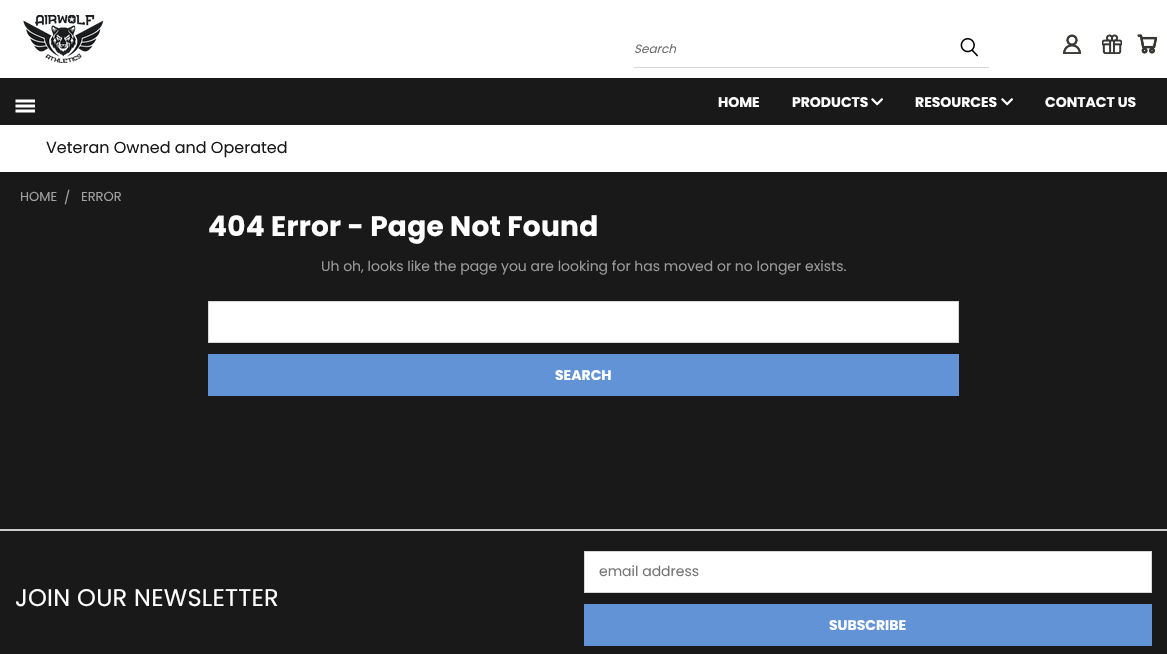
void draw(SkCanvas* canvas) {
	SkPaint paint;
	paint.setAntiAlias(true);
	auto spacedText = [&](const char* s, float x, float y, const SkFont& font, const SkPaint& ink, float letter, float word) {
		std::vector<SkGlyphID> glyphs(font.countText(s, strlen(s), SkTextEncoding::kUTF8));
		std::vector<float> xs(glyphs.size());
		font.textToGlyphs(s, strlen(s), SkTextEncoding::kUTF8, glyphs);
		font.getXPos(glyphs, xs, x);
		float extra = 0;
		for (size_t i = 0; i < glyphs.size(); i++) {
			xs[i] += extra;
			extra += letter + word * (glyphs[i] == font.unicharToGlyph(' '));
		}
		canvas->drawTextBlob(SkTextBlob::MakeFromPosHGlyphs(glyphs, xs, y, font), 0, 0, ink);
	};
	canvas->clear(0xff191919);
	paint.setColor(0xffffffff);
	canvas->drawRect(SkRect::MakeXYWH(0, 0, 1167, 78), paint);
	canvas->drawImageRect(SkImages::DeferredFromEncodedData(SkData::MakeFromFileName("img1.png")), SkRect::MakeXYWH(23, 15, 81, 48), SkSamplingOptions());
	paint.setColor(0xffd7d7d7);
	canvas->drawRect(SkRect::MakeXYWH(634, 67, 355, 1), paint);
	SkFont f1(fontMgr->matchFamilyStyle("Poppins", SkFontStyle::Italic()), 12);
	f1.setSubpixel(true);
	paint.setColor(0xff70706e);
	canvas->drawString("Search", 634, 53, f1, paint);
	canvas->drawImageRect(SkImages::DeferredFromEncodedData(SkData::MakeFromFileName("img2.png")), SkRect::MakeXYWH(960, 38, 18, 19), SkSamplingOptions());
	canvas->drawImageRect(SkImages::DeferredFromEncodedData(SkData::MakeFromFileName("img3.png")), SkRect::MakeXYWH(1063, 34, 18, 20), SkSamplingOptions());
	canvas->drawImageRect(SkImages::DeferredFromEncodedData(SkData::MakeFromFileName("img4.png")), SkRect::MakeXYWH(1102, 34, 20, 20), SkSamplingOptions());
	canvas->drawImageRect(SkImages::DeferredFromEncodedData(SkData::MakeFromFileName("img5.png")), SkRect::MakeXYWH(1137, 34, 20, 20), SkSamplingOptions());
	canvas->drawImageRect(SkImages::DeferredFromEncodedData(SkData::MakeFromFileName("img6.png")), SkRect::MakeXYWH(15, 99, 20, 14), SkSamplingOptions());
	SkFont f2(fontMgr->matchFamilyStyle("Poppins", SkFontStyle::Bold()), 14);
	f2.setSubpixel(true);
	paint.setColor(0xffffffff);
	canvas->drawString("HOME", 718, 107, f2, paint);
	canvas->drawString("PRODUCTS", 792, 107, f2, paint);
	canvas->drawImageRect(SkImages::DeferredFromEncodedData(SkData::MakeFromFileName("img7.png")), SkRect::MakeXYWH(871, 98, 12, 8), SkSamplingOptions());
	canvas->drawString("RESOURCES", 915, 107, f2, paint);
	canvas->drawImageRect(SkImages::DeferredFromEncodedData(SkData::MakeFromFileName("img7.png")), SkRect::MakeXYWH(1001, 98, 12, 8), SkSamplingOptions());
	canvas->drawString("CONTACT US", 1045, 107, f2, paint);
	canvas->drawRect(SkRect::MakeXYWH(0, 125, 1167, 47), paint);
	SkFont f3(fontMgr->matchFamilyStyle("Poppins", SkFontStyle::Normal()), 16);
	f3.setSubpixel(true);
	paint.setColor(0xff191919);
	canvas->drawString("Veteran Owned and Operated", 46, 153, f3, paint);
	SkFont f4(fontMgr->matchFamilyStyle("Poppins", SkFontStyle::Normal()), 13);
	f4.setSubpixel(true);
	paint.setColor(0xffa2a2a2);
	canvas->drawString("HOME", 20, 201, f4, paint);
	canvas->drawString("/", 64, 202, f4, paint);
	canvas->drawString("ERROR", 81, 201, f4, paint);
	SkFont f5(fontMgr->matchFamilyStyle("Poppins", SkFontStyle::Bold()), 28);
	f5.setSubpixel(true);
	paint.setColor(0xffffffff);
	spacedText("404 Error - Page Not Found", 208, 236, f5, paint, 0.25, 0);
	SkFont f6(fontMgr->matchFamilyStyle("Poppins", SkFontStyle::Normal()), 14);
	f6.setSubpixel(true);
	paint.setColor(0xff999999);
	canvas->drawString("Uh oh, looks like the page you are looking for has moved or no longer exists.", 321, 271, f6, paint);
	paint.setColor(0xffffffff);
	canvas->drawRect(SkRect::MakeXYWH(208.5, 301.5, 750, 41), paint);
	paint.setStroke(true);
	paint.setStrokeWidth(1);
	paint.setColor(0xffd7d7d7);
	canvas->drawRect(SkRect::MakeXYWH(208.5, 301.5, 750, 41), paint);
	paint.setStroke(false);
	paint.setColor(0xff6293d6);
	canvas->drawRect(SkRect::MakeXYWH(208, 354, 751, 42), paint);
	paint.setColor(0xffffffff);
	canvas->drawString("SEARCH", 555, 380, f2, paint);
	paint.setColor(0xffcdcccc);
	canvas->drawRect(SkRect::MakeXYWH(0, 529, 1167, 2), paint);
	SkFont f7(fontMgr->matchFamilyStyle("Poppins", SkFontStyle::Normal()), 24);
	f7.setSubpixel(true);
	paint.setColor(0xffffffff);
	spacedText("JOIN OUR NEWSLETTER", 15, 606, f7, paint, 0.25, 0);
	canvas->drawRect(SkRect::MakeXYWH(584.5, 551.5, 567, 41), paint);
	paint.setStroke(true);
	paint.setColor(0xffd7d7d7);
	canvas->drawRect(SkRect::MakeXYWH(584.5, 551.5, 567, 41), paint);
	paint.setStroke(false);
	paint.setColor(0xff757575);
	canvas->drawString("email address", 599, 576, f6, paint);
	paint.setColor(0xff6293d6);
	canvas->drawRect(SkRect::MakeXYWH(584, 604, 568, 42), paint);
	paint.setColor(0xffffffff);
	canvas->drawString("SUBSCRIBE", 829, 630, f2, paint);
}
